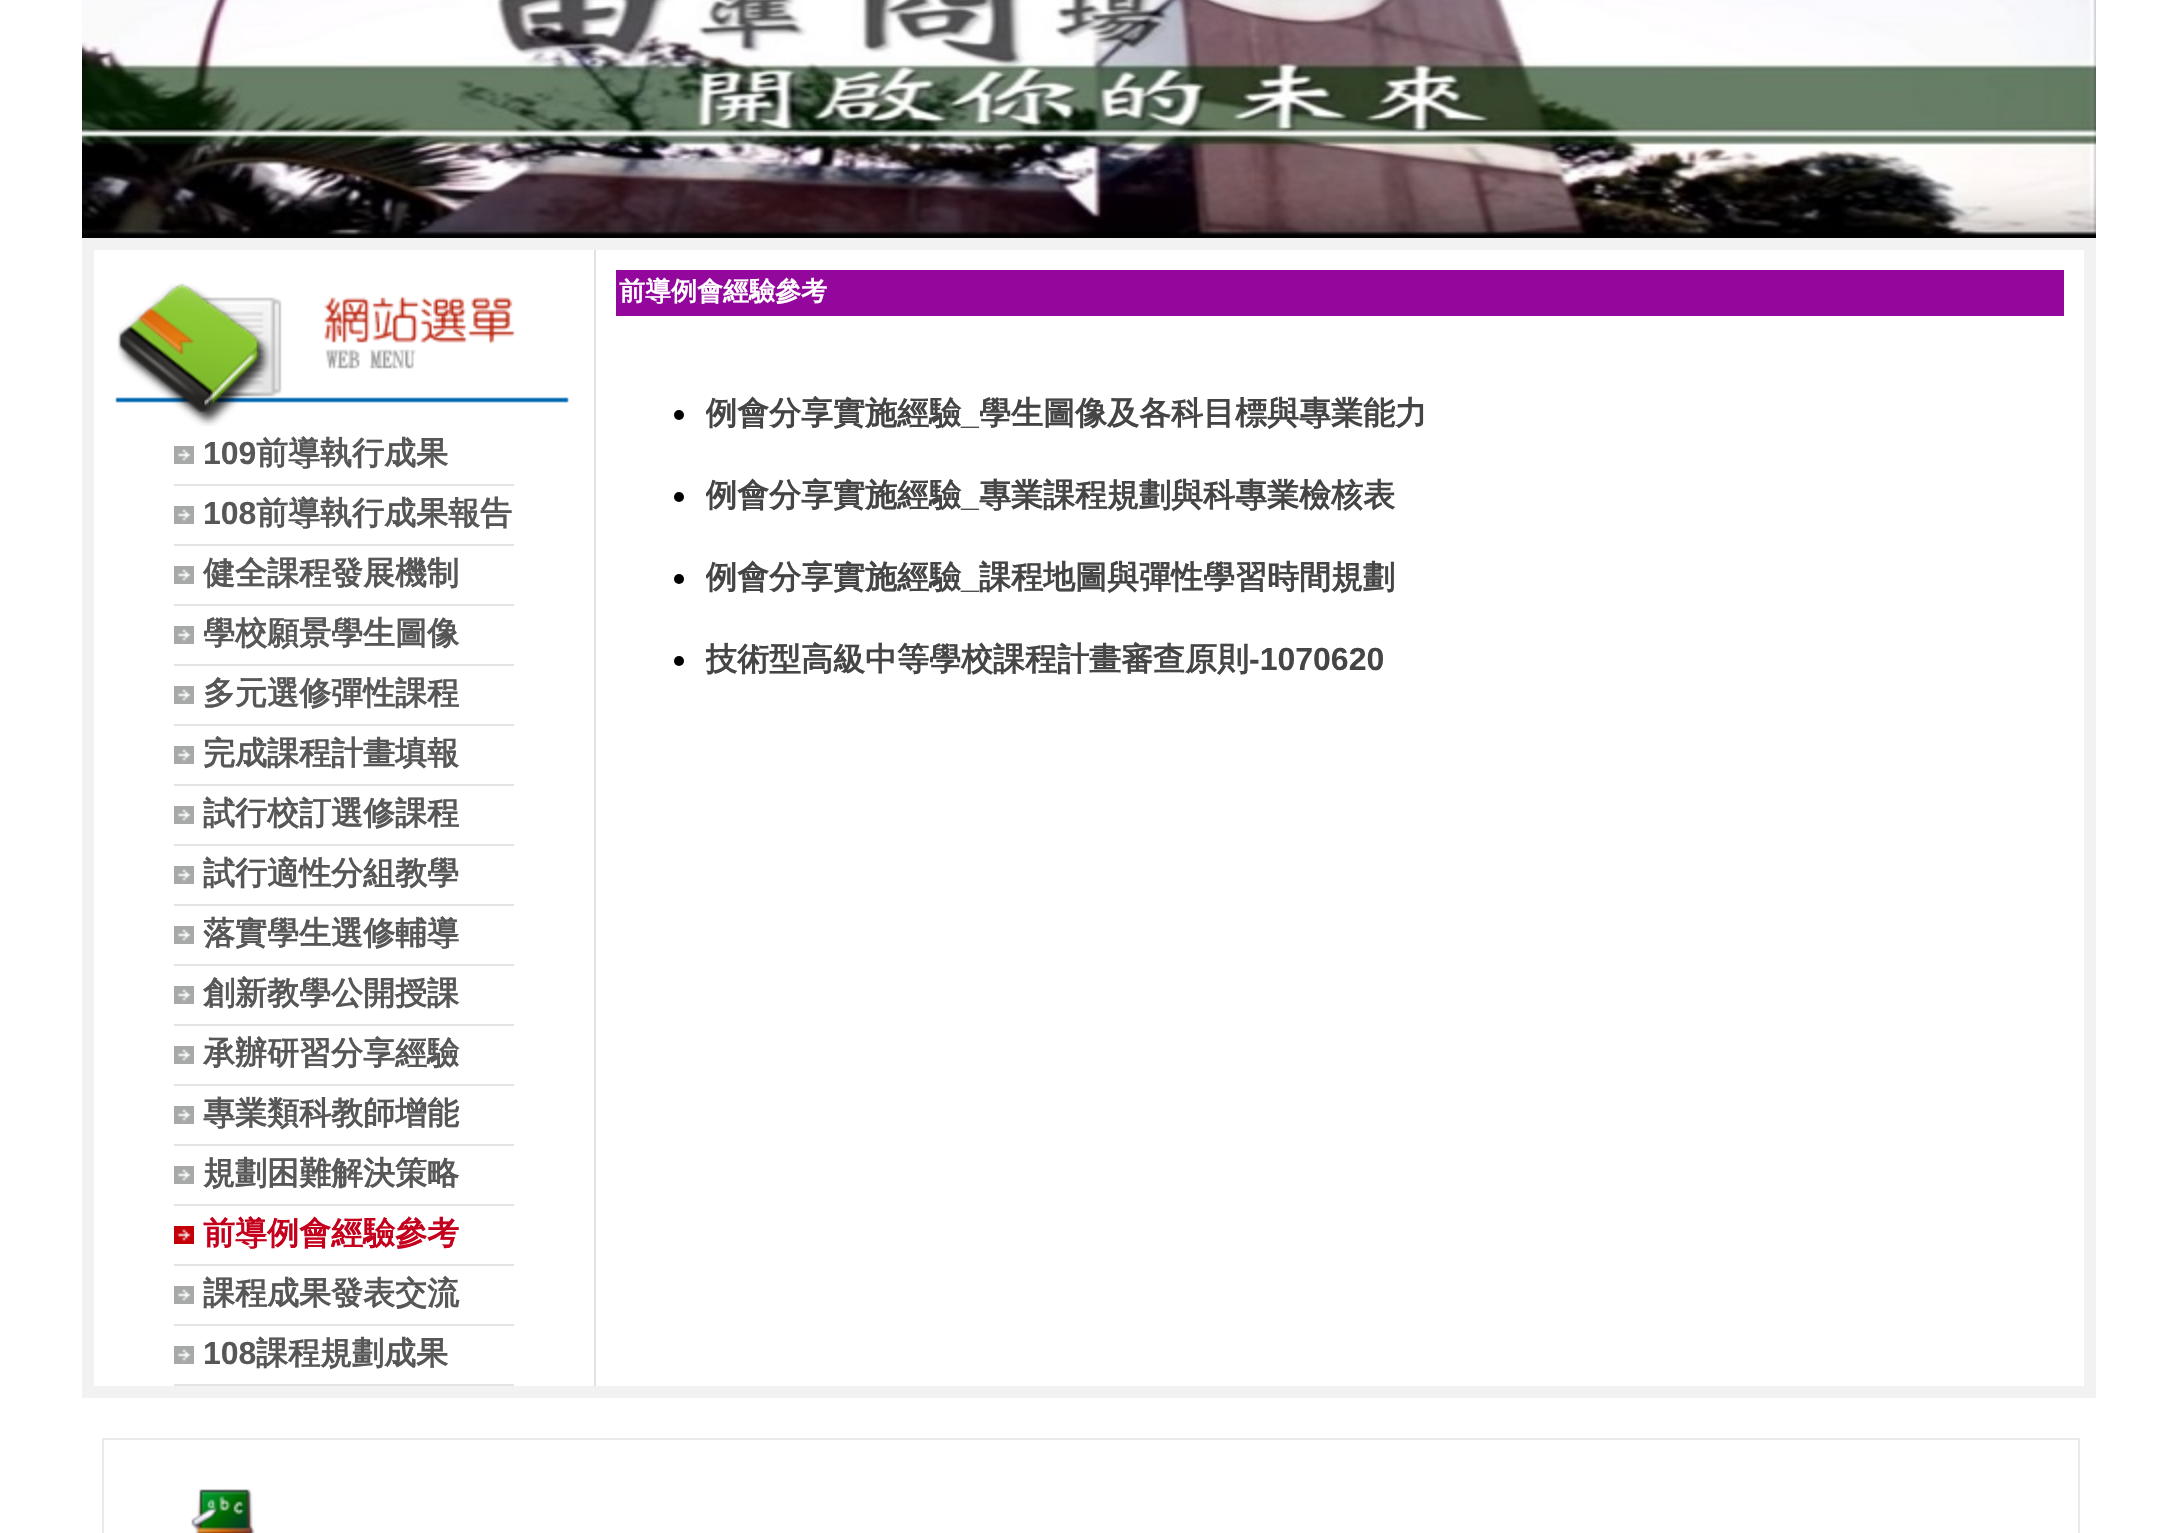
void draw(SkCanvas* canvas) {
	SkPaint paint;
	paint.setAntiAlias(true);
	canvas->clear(0xffffffff);
	canvas->drawImageRect(SkImages::DeferredFromEncodedData(SkData::MakeFromFileName("img1.png")), SkRect::MakeXYWH(82, 0, 2014, 238), SkSamplingOptions());
	paint.setStroke(true);
	paint.setStrokeWidth(12);
	paint.setColor(0xfff2f2f2);
	canvas->drawRect(SkRect::MakeXYWH(88, 244, 2002, 1148), paint);
	canvas->drawImageRect(SkImages::DeferredFromEncodedData(SkData::MakeFromFileName("img2.png")), SkRect::MakeXYWH(115, 283, 454, 143), SkSamplingOptions());
	paint.setStroke(false);
	paint.setColor(0xffe4e4e4);
	canvas->drawRect(SkRect::MakeXYWH(174, 484, 340, 2), paint);
	canvas->drawImageRect(SkImages::DeferredFromEncodedData(SkData::MakeFromFileName("img3.png")), SkRect::MakeXYWH(174, 446, 20, 18), SkSamplingOptions());
	SkFont f1(fontMgr->matchFamilyStyle("Liberation Sans", SkFontStyle::Bold()), 32);
	f1.setSubpixel(true);
	paint.setColor(0xff575757);
	canvas->drawString("109", 203, 464, f1, paint);
	SkFont f2(fontMgr->matchFamilyStyle("WenQuanYi Zen Hei", SkFontStyle::Bold()), 32);
	f2.setSubpixel(true);
	canvas->drawString("前導執行成果", 256, 464, f2, paint);
	paint.setColor(0xffe4e4e4);
	canvas->drawRect(SkRect::MakeXYWH(174, 544, 340, 2), paint);
	canvas->drawImageRect(SkImages::DeferredFromEncodedData(SkData::MakeFromFileName("img3.png")), SkRect::MakeXYWH(174, 506, 20, 18), SkSamplingOptions());
	paint.setColor(0xff575757);
	canvas->drawString("108", 203, 524, f1, paint);
	canvas->drawString("前導執行成果報告", 256, 524, f2, paint);
	paint.setColor(0xffe4e4e4);
	canvas->drawRect(SkRect::MakeXYWH(174, 604, 340, 2), paint);
	canvas->drawImageRect(SkImages::DeferredFromEncodedData(SkData::MakeFromFileName("img3.png")), SkRect::MakeXYWH(174, 566, 20, 18), SkSamplingOptions());
	paint.setColor(0xff575757);
	canvas->drawString("健全課程發展機制", 203, 584, f2, paint);
	paint.setColor(0xffe4e4e4);
	canvas->drawRect(SkRect::MakeXYWH(174, 664, 340, 2), paint);
	canvas->drawImageRect(SkImages::DeferredFromEncodedData(SkData::MakeFromFileName("img3.png")), SkRect::MakeXYWH(174, 626, 20, 18), SkSamplingOptions());
	paint.setColor(0xff575757);
	canvas->drawString("學校願景學生圖像", 203, 644, f2, paint);
	paint.setColor(0xffe4e4e4);
	canvas->drawRect(SkRect::MakeXYWH(174, 724, 340, 2), paint);
	canvas->drawImageRect(SkImages::DeferredFromEncodedData(SkData::MakeFromFileName("img3.png")), SkRect::MakeXYWH(174, 686, 20, 18), SkSamplingOptions());
	paint.setColor(0xff575757);
	canvas->drawString("多元選修彈性課程", 203, 704, f2, paint);
	paint.setColor(0xffe4e4e4);
	canvas->drawRect(SkRect::MakeXYWH(174, 784, 340, 2), paint);
	canvas->drawImageRect(SkImages::DeferredFromEncodedData(SkData::MakeFromFileName("img3.png")), SkRect::MakeXYWH(174, 746, 20, 18), SkSamplingOptions());
	paint.setColor(0xff575757);
	canvas->drawString("完成課程計畫填報", 203, 764, f2, paint);
	paint.setColor(0xffe4e4e4);
	canvas->drawRect(SkRect::MakeXYWH(174, 844, 340, 2), paint);
	canvas->drawImageRect(SkImages::DeferredFromEncodedData(SkData::MakeFromFileName("img3.png")), SkRect::MakeXYWH(174, 806, 20, 18), SkSamplingOptions());
	paint.setColor(0xff575757);
	canvas->drawString("試行校訂選修課程", 203, 824, f2, paint);
	paint.setColor(0xffe4e4e4);
	canvas->drawRect(SkRect::MakeXYWH(174, 904, 340, 2), paint);
	canvas->drawImageRect(SkImages::DeferredFromEncodedData(SkData::MakeFromFileName("img3.png")), SkRect::MakeXYWH(174, 866, 20, 18), SkSamplingOptions());
	paint.setColor(0xff575757);
	canvas->drawString("試行適性分組教學", 203, 884, f2, paint);
	paint.setColor(0xffe4e4e4);
	canvas->drawRect(SkRect::MakeXYWH(174, 964, 340, 2), paint);
	canvas->drawImageRect(SkImages::DeferredFromEncodedData(SkData::MakeFromFileName("img3.png")), SkRect::MakeXYWH(174, 926, 20, 18), SkSamplingOptions());
	paint.setColor(0xff575757);
	canvas->drawString("落實學生選修輔導", 203, 944, f2, paint);
	paint.setColor(0xffe4e4e4);
	canvas->drawRect(SkRect::MakeXYWH(174, 1024, 340, 2), paint);
	canvas->drawImageRect(SkImages::DeferredFromEncodedData(SkData::MakeFromFileName("img3.png")), SkRect::MakeXYWH(174, 986, 20, 18), SkSamplingOptions());
	paint.setColor(0xff575757);
	canvas->drawString("創新教學公開授課", 203, 1004, f2, paint);
	paint.setColor(0xffe4e4e4);
	canvas->drawRect(SkRect::MakeXYWH(174, 1084, 340, 2), paint);
	canvas->drawImageRect(SkImages::DeferredFromEncodedData(SkData::MakeFromFileName("img3.png")), SkRect::MakeXYWH(174, 1046, 20, 18), SkSamplingOptions());
	paint.setColor(0xff575757);
	canvas->drawString("承辦研習分享經驗", 203, 1064, f2, paint);
	paint.setColor(0xffe4e4e4);
	canvas->drawRect(SkRect::MakeXYWH(174, 1144, 340, 2), paint);
	canvas->drawImageRect(SkImages::DeferredFromEncodedData(SkData::MakeFromFileName("img3.png")), SkRect::MakeXYWH(174, 1106, 20, 18), SkSamplingOptions());
	paint.setColor(0xff575757);
	canvas->drawString("專業類科教師增能", 203, 1124, f2, paint);
	paint.setColor(0xffe4e4e4);
	canvas->drawRect(SkRect::MakeXYWH(174, 1204, 340, 2), paint);
	canvas->drawImageRect(SkImages::DeferredFromEncodedData(SkData::MakeFromFileName("img3.png")), SkRect::MakeXYWH(174, 1166, 20, 18), SkSamplingOptions());
	paint.setColor(0xff575757);
	canvas->drawString("規劃困難解決策略", 203, 1184, f2, paint);
	paint.setColor(0xffe4e4e4);
	canvas->drawRect(SkRect::MakeXYWH(174, 1264, 340, 2), paint);
	canvas->drawImageRect(SkImages::DeferredFromEncodedData(SkData::MakeFromFileName("img4.png")), SkRect::MakeXYWH(174, 1226, 20, 18), SkSamplingOptions());
	paint.setColor(0xffc5001c);
	canvas->drawString("前導例會經驗參考", 203, 1244, f2, paint);
	paint.setColor(0xffe4e4e4);
	canvas->drawRect(SkRect::MakeXYWH(174, 1324, 340, 2), paint);
	canvas->drawImageRect(SkImages::DeferredFromEncodedData(SkData::MakeFromFileName("img3.png")), SkRect::MakeXYWH(174, 1286, 20, 18), SkSamplingOptions());
	paint.setColor(0xff575757);
	canvas->drawString("課程成果發表交流", 203, 1304, f2, paint);
	paint.setColor(0xffe4e4e4);
	canvas->drawRect(SkRect::MakeXYWH(174, 1384, 340, 2), paint);
	canvas->drawImageRect(SkImages::DeferredFromEncodedData(SkData::MakeFromFileName("img3.png")), SkRect::MakeXYWH(174, 1346, 20, 18), SkSamplingOptions());
	paint.setColor(0xff575757);
	canvas->drawString("108", 203, 1364, f1, paint);
	canvas->drawString("課程規劃成果", 256, 1364, f2, paint);
	paint.setColor(0xffe2e2e2);
	canvas->drawRect(SkRect::MakeXYWH(594, 250, 2, 1136), paint);
	paint.setColor(0xff93079c);
	canvas->drawRect(SkRect::MakeXYWH(616, 270, 1448, 46), paint);
	SkFont f3(fontMgr->matchFamilyStyle("WenQuanYi Zen Hei", SkFontStyle::Bold()), 26);
	f3.setSubpixel(true);
	paint.setColor(0xffffffff);
	canvas->drawString("前導例會經驗參考", 619, 300, f3, paint);
	paint.setColor(0xff000000);
	canvas->drawCircle(679, 415, 5, paint);
	canvas->save();
	canvas->clipRect(SkRect::MakeXYWH(706, 394, 1358, 42));
	paint.setColor(0xff454545);
	canvas->drawString("例會分享實施經驗", 705, 424, f2, paint);
	canvas->restore();
	canvas->drawString("_", 961, 424, f1, paint);
	canvas->drawString("學生圖像及各科目標與專業能力", 979, 424, f2, paint);
	paint.setColor(0xff000000);
	canvas->drawCircle(679, 497, 5, paint);
	canvas->save();
	canvas->clipRect(SkRect::MakeXYWH(706, 476, 1358, 42));
	paint.setColor(0xff454545);
	canvas->drawString("例會分享實施經驗", 705, 506, f2, paint);
	canvas->restore();
	canvas->drawString("_", 961, 506, f1, paint);
	canvas->drawString("專業課程規劃與科專業檢核表", 979, 506, f2, paint);
	paint.setColor(0xff000000);
	canvas->drawCircle(679, 579, 5, paint);
	canvas->save();
	canvas->clipRect(SkRect::MakeXYWH(706, 558, 1358, 42));
	paint.setColor(0xff454545);
	canvas->drawString("例會分享實施經驗", 705, 588, f2, paint);
	canvas->restore();
	canvas->drawString("_", 961, 588, f1, paint);
	canvas->drawString("課程地圖與彈性學習時間規劃", 979, 588, f2, paint);
	paint.setColor(0xff000000);
	canvas->drawCircle(679, 661, 5, paint);
	canvas->save();
	canvas->clipRect(SkRect::MakeXYWH(706, 640, 1358, 42));
	paint.setColor(0xff454545);
	canvas->drawString("技術型高級中等學校課程計畫審查原則", 705, 670, f2, paint);
	canvas->restore();
	canvas->drawString("-1070620", 1249, 670, f1, paint);
	paint.setStroke(true);
	paint.setStrokeWidth(2);
	paint.setColor(0xffe9e9e9);
	canvas->drawRect(SkRect::MakeXYWH(103, 1439, 1976, 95), paint);
	canvas->drawImageRect(SkImages::DeferredFromEncodedData(SkData::MakeFromFileName("img5.png")), SkRect::MakeXYWH(191, 1489, 64, 44), SkSamplingOptions());
}
